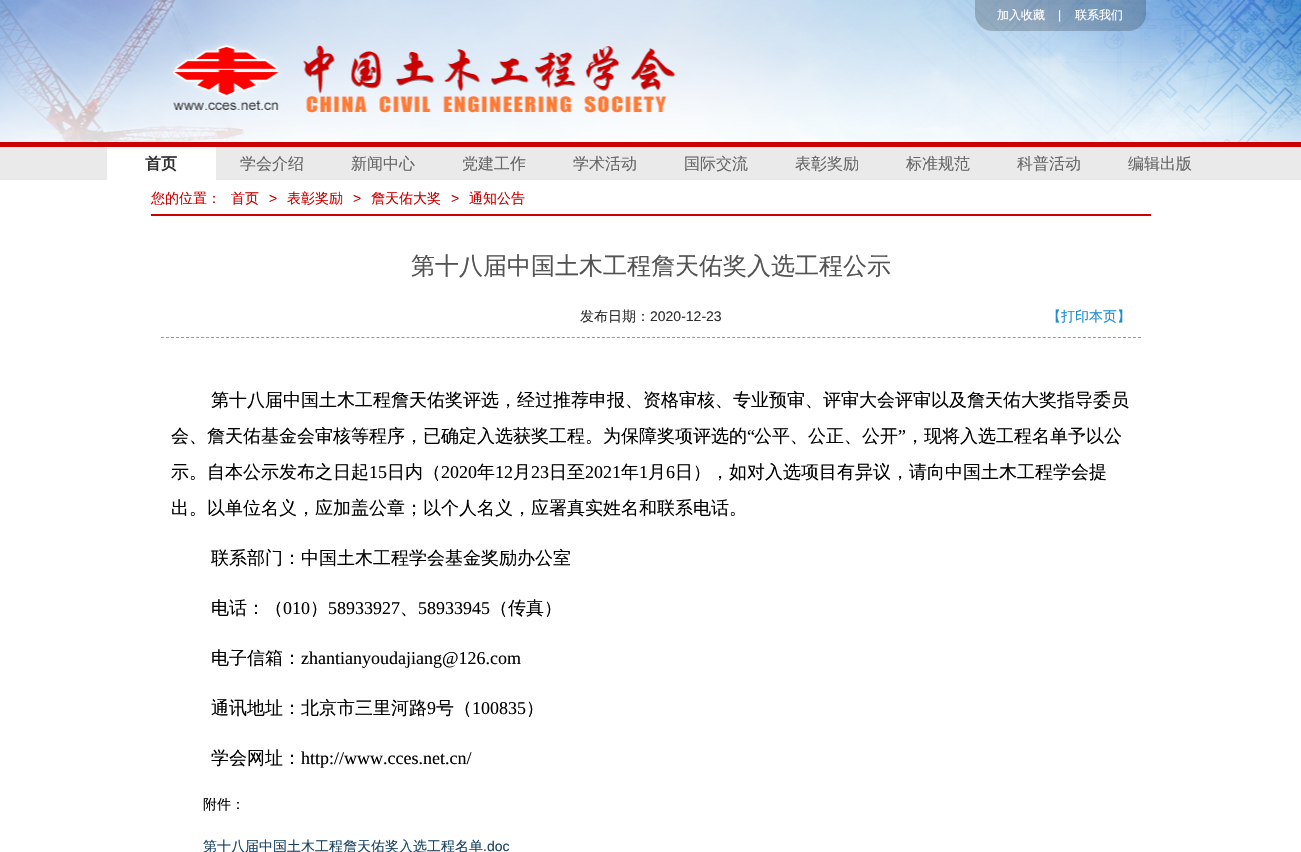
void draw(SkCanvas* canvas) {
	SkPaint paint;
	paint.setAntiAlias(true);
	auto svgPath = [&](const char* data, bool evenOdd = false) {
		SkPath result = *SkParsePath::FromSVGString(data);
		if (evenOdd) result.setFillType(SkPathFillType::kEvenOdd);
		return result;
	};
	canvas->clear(0xffffffff);
	canvas->drawImageRect(SkImages::DeferredFromEncodedData(SkData::MakeFromFileName("img1.png")), SkRect::MakeXYWH(0, 0, 1301, 142), SkSamplingOptions());
	canvas->drawImageRect(SkImages::DeferredFromEncodedData(SkData::MakeFromFileName("img2.png")), SkRect::MakeXYWH(975, 0, 171, 31), SkSamplingOptions());
	SkFont f1(fontMgr->matchFamilyStyle("WenQuanYi Zen Hei", SkFontStyle(500, SkFontStyle::kNormal_Width, SkFontStyle::kUpright_Slant)), 12);
	f1.setSubpixel(true);
	paint.setColor(0xffffffff);
	canvas->drawString("加入收藏", 997, 19, f1, paint);
	SkFont f2(fontMgr->matchFamilyStyle("Liberation Sans", SkFontStyle::Normal()), 12);
	f2.setSubpixel(true);
	canvas->drawString("|", 1058, 19, f2, paint);
	canvas->drawString("联系我们", 1075, 19, f1, paint);
	paint.setColor(0xffeaeaea);
	canvas->drawRect(SkRect::MakeXYWH(0, 147, 1301, 33), paint);
	paint.setColor(0xffcc0000);
	canvas->drawRect(SkRect::MakeXYWH(0, 142, 1301, 5), paint);
	paint.setColor(0xffffffff);
	canvas->drawRect(SkRect::MakeXYWH(107, 147, 109, 33), paint);
	SkFont f3(fontMgr->matchFamilyStyle("WenQuanYi Zen Hei", SkFontStyle::Bold()), 16);
	f3.setSubpixel(true);
	paint.setColor(0xff2e2e2e);
	canvas->drawString("首页", 145, 169, f3, paint);
	SkFont f4(fontMgr->matchFamilyStyle("WenQuanYi Zen Hei", SkFontStyle(500, SkFontStyle::kNormal_Width, SkFontStyle::kUpright_Slant)), 16);
	f4.setSubpixel(true);
	paint.setColor(0xff666666);
	canvas->drawString("学会介绍", 240, 169, f4, paint);
	canvas->drawString("新闻中心", 351, 169, f4, paint);
	canvas->drawString("党建工作", 462, 169, f4, paint);
	canvas->drawString("学术活动", 573, 169, f4, paint);
	canvas->drawString("国际交流", 684, 169, f4, paint);
	canvas->drawString("表彰奖励", 795, 169, f4, paint);
	canvas->drawString("标准规范", 906, 169, f4, paint);
	canvas->drawString("科普活动", 1017, 169, f4, paint);
	canvas->drawString("编辑出版", 1128, 169, f4, paint);
	paint.setColor(0xffcc0000);
	canvas->drawRect(SkRect::MakeXYWH(151, 214, 1000, 2), paint);
	SkFont f5(fontMgr->matchFamilyStyle("WenQuanYi Zen Hei", SkFontStyle(500, SkFontStyle::kNormal_Width, SkFontStyle::kUpright_Slant)), 14);
	f5.setSubpixel(true);
	canvas->drawString("您的位置：", 151, 203, f5, paint);
	canvas->drawString("首页", 231, 203, f5, paint);
	SkFont f6(fontMgr->matchFamilyStyle("Liberation Sans", SkFontStyle::Normal()), 14);
	f6.setSubpixel(true);
	canvas->drawString(">", 269, 203, f6, paint);
	canvas->drawString("表彰奖励", 287, 203, f5, paint);
	canvas->drawString(">", 353, 203, f6, paint);
	canvas->drawString("詹天佑大奖", 371, 203, f5, paint);
	canvas->drawString(">", 451, 203, f6, paint);
	canvas->drawString("通知公告", 469, 203, f5, paint);
	SkFont f7(fontMgr->matchFamilyStyle("WenQuanYi Zen Hei", SkFontStyle(500, SkFontStyle::kNormal_Width, SkFontStyle::kUpright_Slant)), 24);
	f7.setSubpixel(true);
	paint.setColor(0xff535353);
	canvas->drawString("第十八届中国土木工程詹天佑奖入选工程公示", 411, 274, f7, paint);
	paint.setStroke(true);
	paint.setStrokeWidth(1);
	paint.setColor(0xff999999);
	paint.setPathEffect(SkDashPathEffect::Make({{3, 2.01f}}, 0));
	canvas->drawPath(svgPath("M161 337.5H1141"), paint);
	paint.setPathEffect(nullptr);
	paint.setStroke(false);
	paint.setColor(0xff2e2e2e);
	canvas->drawString("发布日期：", 580, 321, f5, paint);
	canvas->drawString("2020-12-23", 650, 321, f6, paint);
	paint.setColor(0xff218ece);
	canvas->drawString("【打印本页】", 1047, 321, f5, paint);
	SkFont f8(fontMgr->matchFamilyStyle("WenQuanYi Zen Hei", SkFontStyle(500, SkFontStyle::kNormal_Width, SkFontStyle::kUpright_Slant)), 18);
	f8.setSubpixel(true);
	paint.setColor(0xff000000);
	canvas->drawString("第十八届中国土木工程詹天佑奖评选，经过推荐申报、资格审核、专业预审、评审大会评审以及詹天佑大奖指导委员", 211, 406, f8, paint);
	canvas->drawString("会、詹天佑基金会审核等程序，已确定入选获奖工程。为保障奖项评选的", 171, 442, f8, paint);
	SkFont f9(fontMgr->matchFamilyStyle("Liberation Serif", SkFontStyle::Normal()), 18);
	f9.setSubpixel(true);
	canvas->drawString("“", 747, 442, f9, paint);
	canvas->drawString("公平、公正、公开", 754, 442, f8, paint);
	canvas->drawString("”", 898, 442, f9, paint);
	canvas->drawString("，现将入选工程名单予以公", 906, 442, f8, paint);
	canvas->drawString("示。自本公示发布之日起", 171, 478, f8, paint);
	canvas->drawString("15", 369, 478, f9, paint);
	canvas->drawString("日内（", 387, 478, f8, paint);
	canvas->drawString("2020", 441, 478, f9, paint);
	canvas->drawString("年", 477, 478, f8, paint);
	canvas->drawString("12", 495, 478, f9, paint);
	canvas->drawString("月", 513, 478, f8, paint);
	canvas->drawString("23", 531, 478, f9, paint);
	canvas->drawString("日至", 549, 478, f8, paint);
	canvas->drawString("2021", 585, 478, f9, paint);
	canvas->drawString("年", 621, 478, f8, paint);
	canvas->drawString("1", 639, 478, f9, paint);
	canvas->drawString("月", 648, 478, f8, paint);
	canvas->drawString("6", 666, 478, f9, paint);
	canvas->drawString("日），如对入选项目有异议，请向中国土木工程学会提", 675, 478, f8, paint);
	canvas->drawString("出。以单位名义，应加盖公章；以个人名义，应署真实姓名和联系电话。", 171, 514, f8, paint);
	canvas->drawString("联系部门：中国土木工程学会基金奖励办公室", 211, 564, f8, paint);
	canvas->drawString("电话：（", 211, 614, f8, paint);
	canvas->drawString("010", 283, 614, f9, paint);
	canvas->drawString("）", 310, 614, f8, paint);
	canvas->drawString("58933927", 328, 614, f9, paint);
	canvas->drawString("、", 400, 614, f8, paint);
	canvas->drawString("58933945", 418, 614, f9, paint);
	canvas->drawString("（传真）", 490, 614, f8, paint);
	canvas->drawString("电子信箱：", 211, 664, f8, paint);
	canvas->drawString("zhantianyoudajiang@126.com", 301, 664, f9, paint);
	canvas->drawString("通讯地址：北京市三里河路", 211, 714, f8, paint);
	canvas->drawString("9", 427, 714, f9, paint);
	canvas->drawString("号（", 436, 714, f8, paint);
	canvas->drawString("100835", 472, 714, f9, paint);
	canvas->drawString("）", 526, 714, f8, paint);
	canvas->drawString("学会网址：", 211, 764, f8, paint);
	canvas->drawString("http://www.cces.net.cn/", 301, 764, f9, paint);
	canvas->drawString("附件：", 203, 809, f5, paint);
	paint.setColor(0xff1a4363);
	canvas->drawString("第十八届中国土木工程詹天佑奖入选工程名单", 203, 851, f5, paint);
	canvas->drawString(".doc", 483, 851, f6, paint);
}
